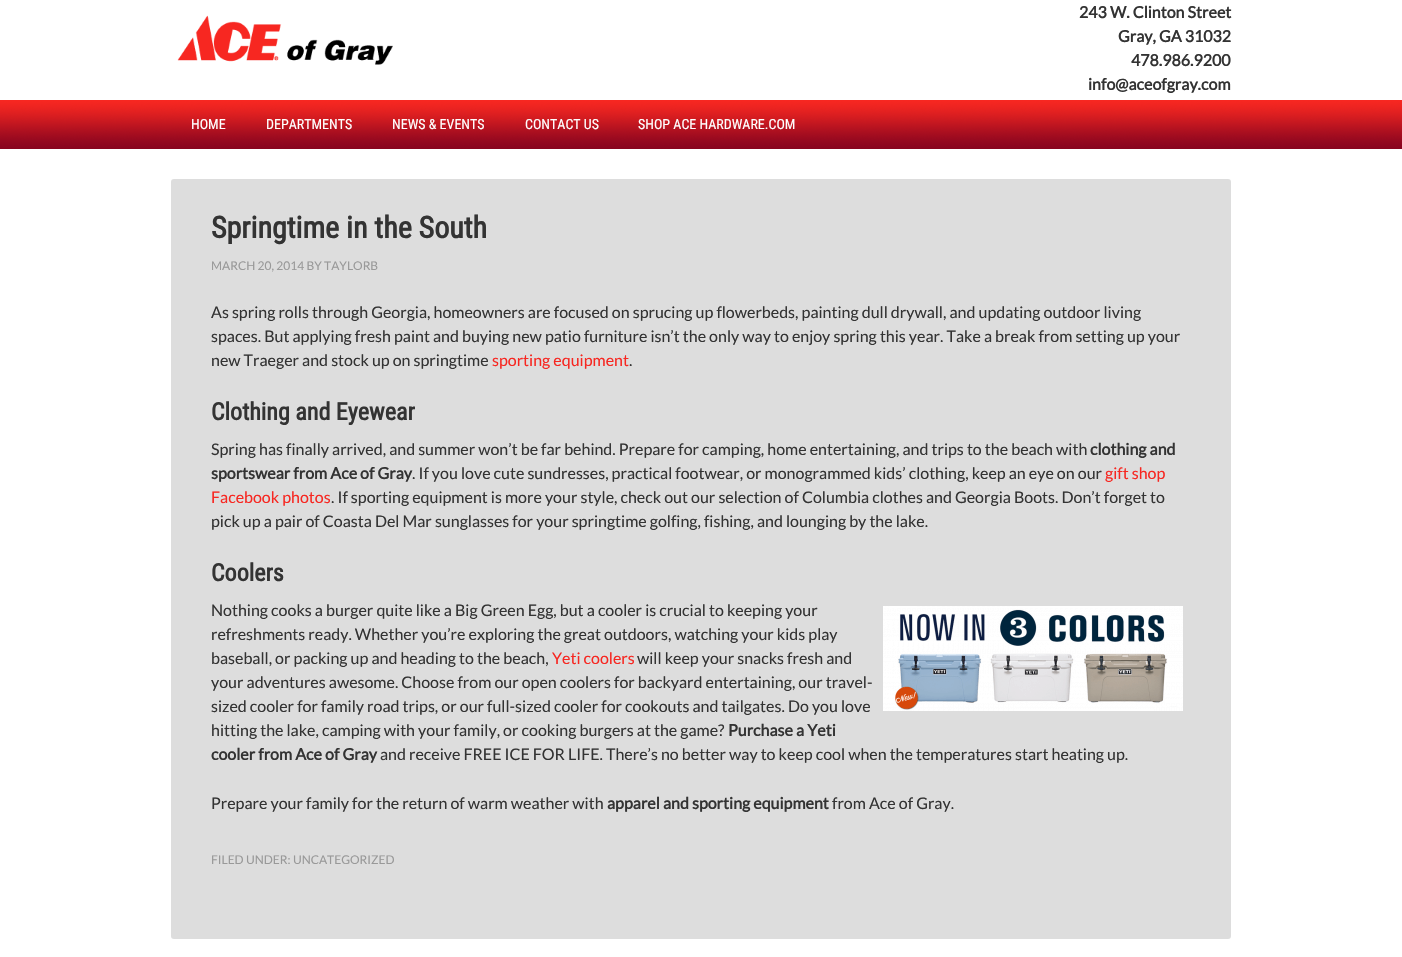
void draw(SkCanvas* canvas) {
	SkPaint paint;
	paint.setAntiAlias(true);
	canvas->clear(0xffffffff);
	canvas->drawImageRect(SkImages::DeferredFromEncodedData(SkData::MakeFromFileName("img1.png")), SkRect::MakeXYWH(177, 15, 216, 50), SkSamplingOptions());
	SkFont f1(fontMgr->matchFamilyStyle("Lato", SkFontStyle::Bold()), 16);
	f1.setSubpixel(true);
	paint.setColor(0xff333333);
	canvas->drawString("243 W. Clinton Street", 1079, 18, f1, paint);
	canvas->drawString("Gray, GA 31032", 1118, 42, f1, paint);
	canvas->drawString("478.986.9200", 1131, 66, f1, paint);
	canvas->drawString("info@aceofgray.com", 1088, 90, f1, paint);
	canvas->drawImageRect(SkImages::DeferredFromEncodedData(SkData::MakeFromFileName("img2.png")), SkRect::MakeXYWH(0, 100, 1402, 49), SkSamplingOptions());
	SkFont f2(fontMgr->matchFamilyStyle("Roboto Condensed", SkFontStyle::Normal()), 14);
	f2.setSubpixel(true);
	paint.setColor(0xffffffff);
	canvas->drawString("HOME", 191, 129, f2, paint);
	canvas->drawString("DEPARTMENTS", 266, 129, f2, paint);
	canvas->drawString("NEWS & EVENTS", 392, 129, f2, paint);
	canvas->drawString("CONTACT US", 525, 129, f2, paint);
	canvas->drawString("SHOP ACE HARDWARE.COM", 638, 129, f2, paint);
	paint.setColor(0xffdddddd);
	canvas->drawRoundRect(SkRect::MakeXYWH(171, 179, 1060, 760), 3, 3, paint);
	SkFont f3(fontMgr->matchFamilyStyle("Roboto Condensed", SkFontStyle::Bold()), 30);
	f3.setSubpixel(true);
	paint.setColor(0xff333333);
	canvas->drawString("Springtime in the South", 211, 238, f3, paint);
	SkFont f4(fontMgr->matchFamilyStyle("Lato", SkFontStyle::Normal()), 12);
	f4.setSubpixel(true);
	paint.setColor(0xff999999);
	canvas->drawString("MARCH 20, 2014 BY TAYLORB", 211, 270, f4, paint);
	SkFont f5(fontMgr->matchFamilyStyle("Lato", SkFontStyle::Normal()), 16);
	f5.setSubpixel(true);
	paint.setColor(0xff333333);
	canvas->drawString("As spring rolls through Georgia, homeowners are focused on sprucing up flowerbeds, painting dull drywall, and updating outdoor living", 211, 318, f5, paint);
	canvas->drawString("spaces. But applying fresh paint and buying new patio furniture isn’t the only way to enjoy spring this year. Take a break from setting up your", 211, 342, f5, paint);
	canvas->drawString("new Traeger and stock up on springtime", 211, 366, f5, paint);
	paint.setColor(0xfff72721);
	canvas->drawString("sporting equipment", 492, 366, f5, paint);
	paint.setColor(0xff333333);
	canvas->drawString(".", 629, 366, f5, paint);
	SkFont f6(fontMgr->matchFamilyStyle("Roboto Condensed", SkFontStyle::Bold()), 24);
	f6.setSubpixel(true);
	canvas->drawString("Clothing and Eyewear", 211, 420, f6, paint);
	canvas->drawString("Spring has finally arrived, and summer won’t be far behind. Prepare for camping, home entertaining, and trips to the beach with", 211, 455, f5, paint);
	canvas->drawString("clothing and", 1090, 455, f1, paint);
	canvas->drawString("sportswear from Ace of Gray", 211, 479, f1, paint);
	canvas->drawString(". If you love cute sundresses, practical footwear, or monogrammed kids’ clothing, keep an eye on our", 412, 479, f5, paint);
	paint.setColor(0xfff72721);
	canvas->drawString("gift shop", 1105, 479, f5, paint);
	canvas->drawString("Facebook photos", 211, 503, f5, paint);
	paint.setColor(0xff333333);
	canvas->drawString(". If sporting equipment is more your style, check out our selection of Columbia clothes and Georgia Boots. Don’t forget to", 331, 503, f5, paint);
	canvas->drawString("pick up a pair of Coasta Del Mar sunglasses for your springtime golfing, fishing, and lounging by the lake.", 211, 527, f5, paint);
	canvas->drawString("Coolers", 211, 581, f6, paint);
	canvas->drawString("Nothing cooks a burger quite like a Big Green Egg, but a cooler is crucial to keeping your", 211, 616, f5, paint);
	canvas->drawImageRect(SkImages::DeferredFromEncodedData(SkData::MakeFromFileName("img3.png")), SkRect::MakeXYWH(883, 606, 300, 105), SkSamplingOptions());
	canvas->drawString("refreshments ready. Whether you’re exploring the great outdoors, watching your kids play", 211, 640, f5, paint);
	canvas->drawString("baseball, or packing up and heading to the beach,", 211, 664, f5, paint);
	paint.setColor(0xfff72721);
	canvas->drawString("Yeti coolers", 552, 664, f5, paint);
	paint.setColor(0xff333333);
	canvas->drawString("will keep your snacks fresh and", 637, 664, f5, paint);
	canvas->drawString("your adventures awesome. Choose from our open coolers for backyard entertaining, our travel-", 211, 688, f5, paint);
	canvas->drawString("sized cooler for family road trips, or our full-sized cooler for cookouts and tailgates. Do you love", 211, 712, f5, paint);
	canvas->drawString("hitting the lake, camping with your family, or cooking burgers at the game?", 211, 736, f5, paint);
	canvas->drawString("Purchase a Yeti", 728, 736, f1, paint);
	canvas->drawString("cooler from Ace of Gray", 211, 760, f1, paint);
	canvas->drawString("and receive FREE ICE FOR LIFE. There’s no better way to keep cool when the temperatures start heating up.", 380, 760, f5, paint);
	canvas->drawString("Prepare your family for the return of warm weather with", 211, 809, f5, paint);
	canvas->drawString("apparel and sporting equipment", 607, 809, f1, paint);
	canvas->drawString("from Ace of Gray.", 832, 809, f5, paint);
	paint.setColor(0xff999999);
	canvas->drawString("FILED UNDER: UNCATEGORIZED", 211, 864, f4, paint);
}
